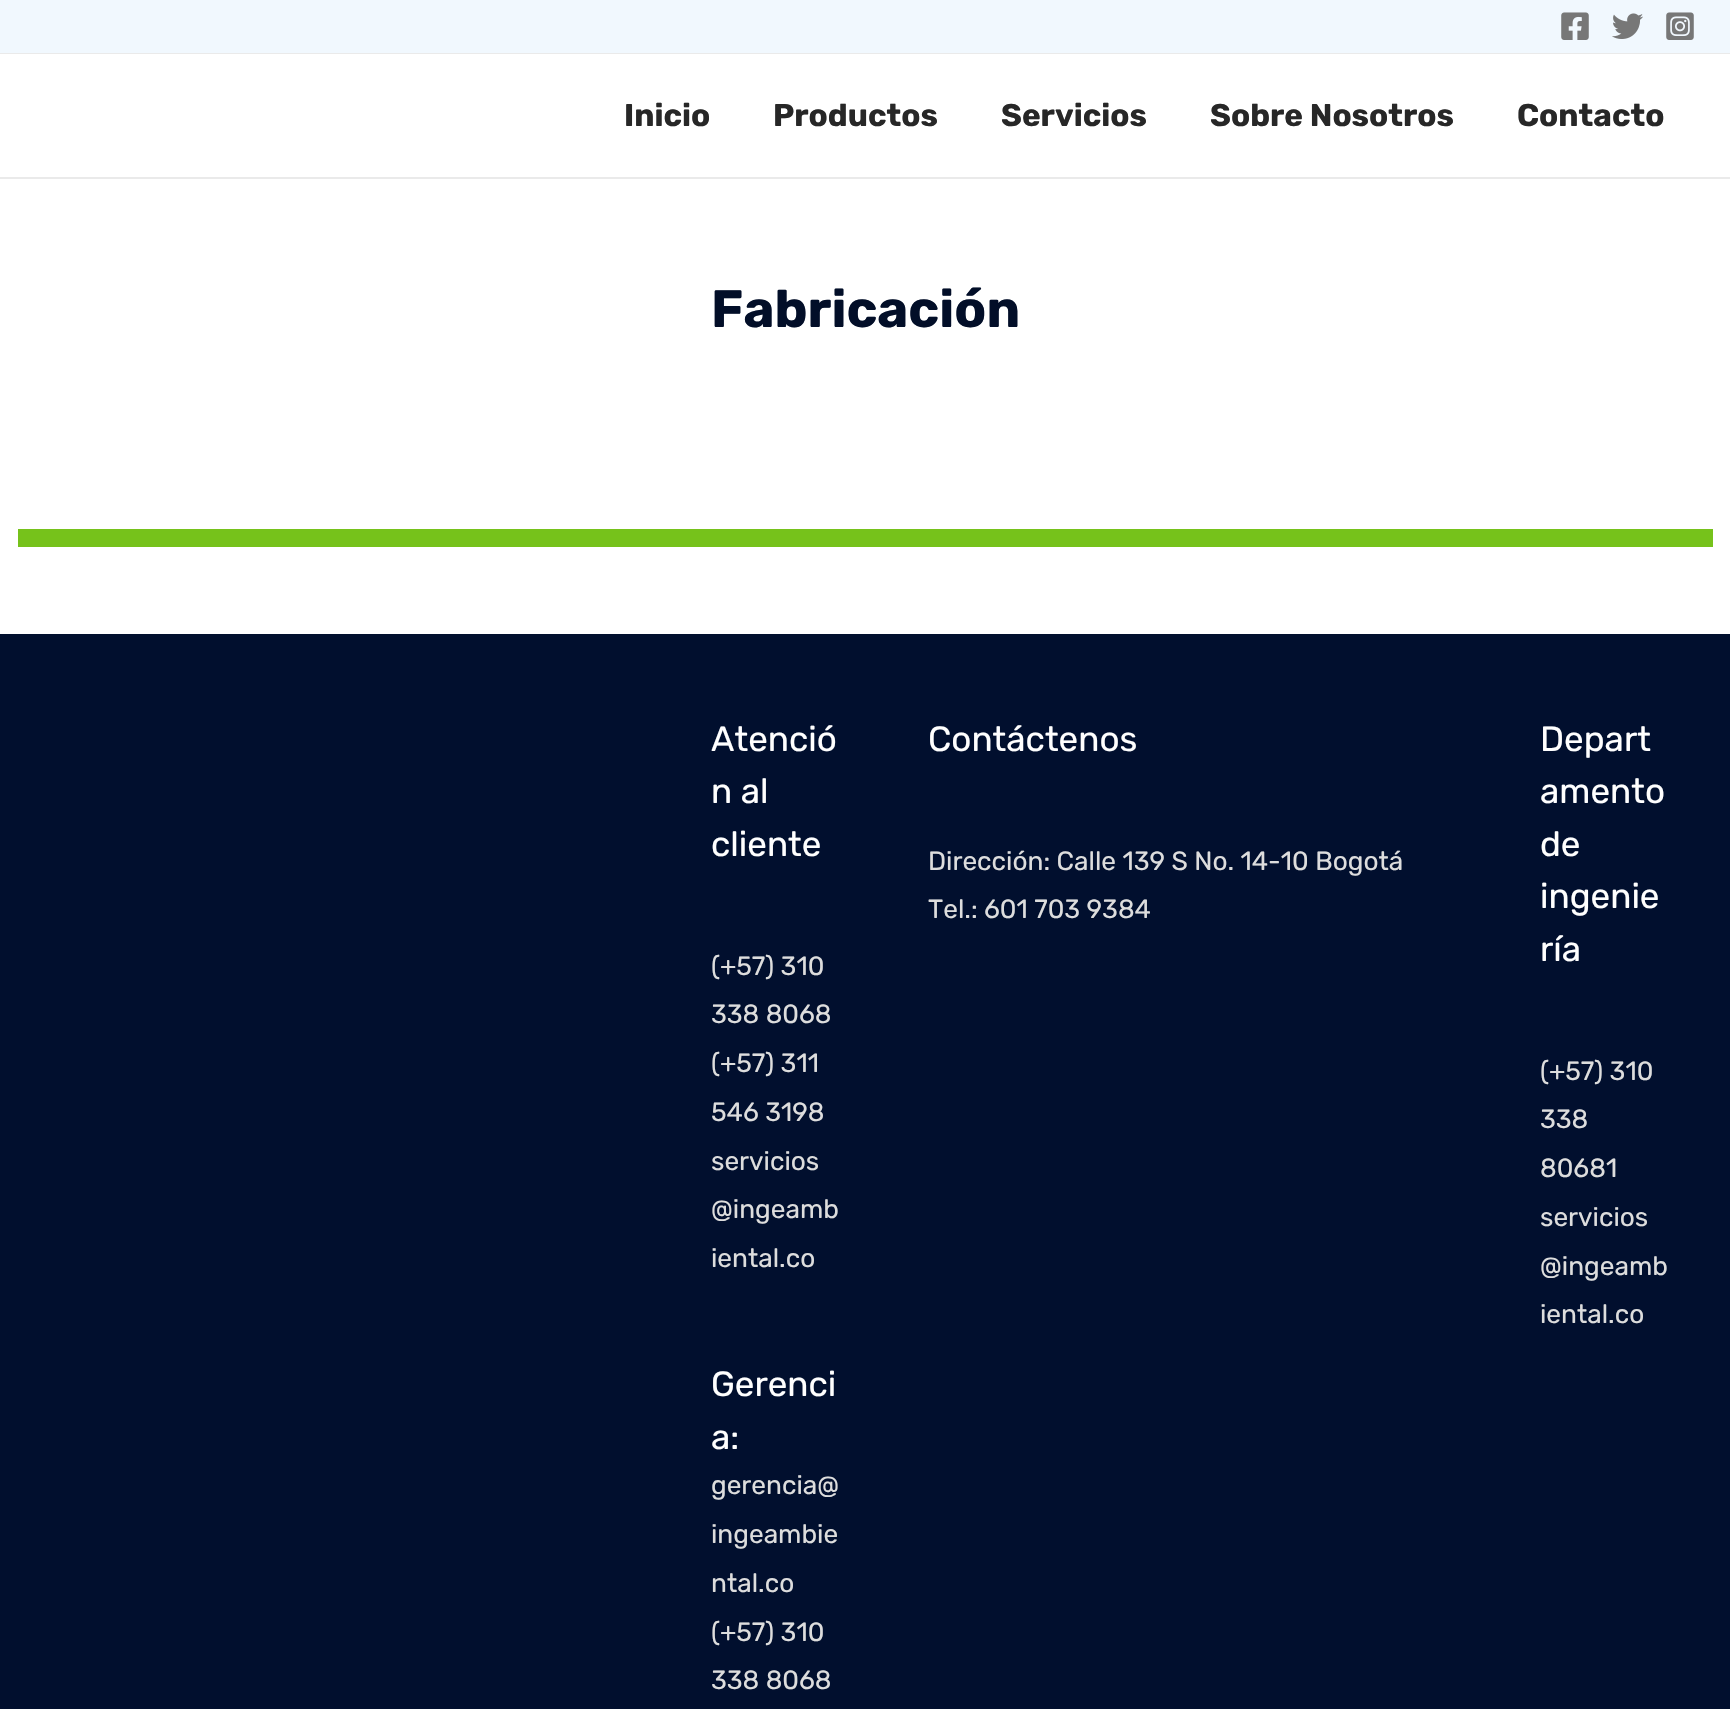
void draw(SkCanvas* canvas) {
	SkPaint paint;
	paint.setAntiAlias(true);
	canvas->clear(0xffffffff);
	paint.setColor(0xfff1f8fe);
	canvas->drawRect(SkRect::MakeXYWH(0, 0, 1730, 53), paint);
	paint.setColor(0xffeaeaea);
	canvas->drawRect(SkRect::MakeXYWH(0, 53, 1730, 1), paint);
	canvas->drawImageRect(SkImages::DeferredFromEncodedData(SkData::MakeFromFileName("img1.png")), SkRect::MakeXYWH(1561, 12, 28, 28), SkSamplingOptions());
	canvas->drawImageRect(SkImages::DeferredFromEncodedData(SkData::MakeFromFileName("img2.png")), SkRect::MakeXYWH(1612, 13, 31, 26), SkSamplingOptions());
	canvas->drawImageRect(SkImages::DeferredFromEncodedData(SkData::MakeFromFileName("img3.png")), SkRect::MakeXYWH(1666, 12, 28, 28), SkSamplingOptions());
	canvas->drawRect(SkRect::MakeXYWH(0, 177, 1730, 2), paint);
	SkFont f1(fontMgr->matchFamilyStyle("Rubik", SkFontStyle::Bold()), 31.5);
	f1.setSubpixel(true);
	paint.setColor(0xff272727);
	canvas->drawString("Inicio", 624, 126, f1, paint);
	canvas->drawString("Productos", 773, 126, f1, paint);
	canvas->drawString("Servicios", 1001, 126, f1, paint);
	canvas->drawString("Sobre Nosotros", 1210, 126, f1, paint);
	canvas->drawString("Contacto", 1517, 126, f1, paint);
	SkFont f2(fontMgr->matchFamilyStyle("Rubik", SkFontStyle::Bold()), 52.5);
	f2.setSubpixel(true);
	paint.setColor(0xff020e28);
	canvas->drawString("Fabricación", 711, 327, f2, paint);
	paint.setColor(0xff76c21b);
	canvas->drawRect(SkRect::MakeXYWH(18, 529, 1695, 18), paint);
	paint.setColor(0xff010f2e);
	canvas->drawRect(SkRect::MakeXYWH(0, 634, 1730, 1075), paint);
	SkFont f3(fontMgr->matchFamilyStyle("Rubik", SkFontStyle::Normal()), 35);
	f3.setSubpixel(true);
	paint.setColor(0xffffffff);
	canvas->drawString("Atenció", 711, 751, f3, paint);
	canvas->drawString("n al", 711, 803, f3, paint);
	canvas->drawString("cliente", 711, 856, f3, paint);
	SkFont f4(fontMgr->matchFamilyStyle("Rubik", SkFontStyle::Normal()), 26.25);
	f4.setSubpixel(true);
	paint.setColor(0xffdddddd);
	canvas->drawString("(+57) 310", 711, 975, f4, paint);
	canvas->drawString("338 8068", 711, 1023, f4, paint);
	canvas->drawString("(+57) 311", 711, 1072, f4, paint);
	canvas->drawString("546 3198", 711, 1121, f4, paint);
	canvas->drawString("servicios", 711, 1170, f4, paint);
	canvas->drawString("@ingeamb", 711, 1218, f4, paint);
	canvas->drawString("iental.co", 711, 1267, f4, paint);
	paint.setColor(0xffffffff);
	canvas->drawString("Gerenci", 711, 1396, f3, paint);
	canvas->drawString("a:", 711, 1449, f3, paint);
	paint.setColor(0xffdddddd);
	canvas->drawString("gerencia@", 711, 1494, f4, paint);
	canvas->drawString("ingeambie", 711, 1543, f4, paint);
	canvas->drawString("ntal.co", 711, 1592, f4, paint);
	canvas->drawString("(+57) 310", 711, 1641, f4, paint);
	canvas->drawString("338 8068", 711, 1689, f4, paint);
	paint.setColor(0xffffffff);
	canvas->drawString("Contáctenos", 928, 751, f3, paint);
	paint.setColor(0xffdddddd);
	canvas->drawString("Dirección: Calle 139 S No. 14-10 Bogotá", 928, 870, f4, paint);
	canvas->drawString("Tel.: 601 703 9384", 928, 918, f4, paint);
	paint.setColor(0xffffffff);
	canvas->drawString("Depart", 1540, 751, f3, paint);
	canvas->drawString("amento", 1540, 803, f3, paint);
	canvas->drawString("de", 1540, 856, f3, paint);
	canvas->drawString("ingenie", 1540, 908, f3, paint);
	canvas->drawString("ría", 1540, 961, f3, paint);
	paint.setColor(0xffdddddd);
	canvas->drawString("(+57) 310", 1540, 1080, f4, paint);
	canvas->drawString("338", 1540, 1128, f4, paint);
	canvas->drawString("80681", 1540, 1177, f4, paint);
	canvas->drawString("servicios", 1540, 1226, f4, paint);
	canvas->drawString("@ingeamb", 1540, 1275, f4, paint);
	canvas->drawString("iental.co", 1540, 1323, f4, paint);
}
